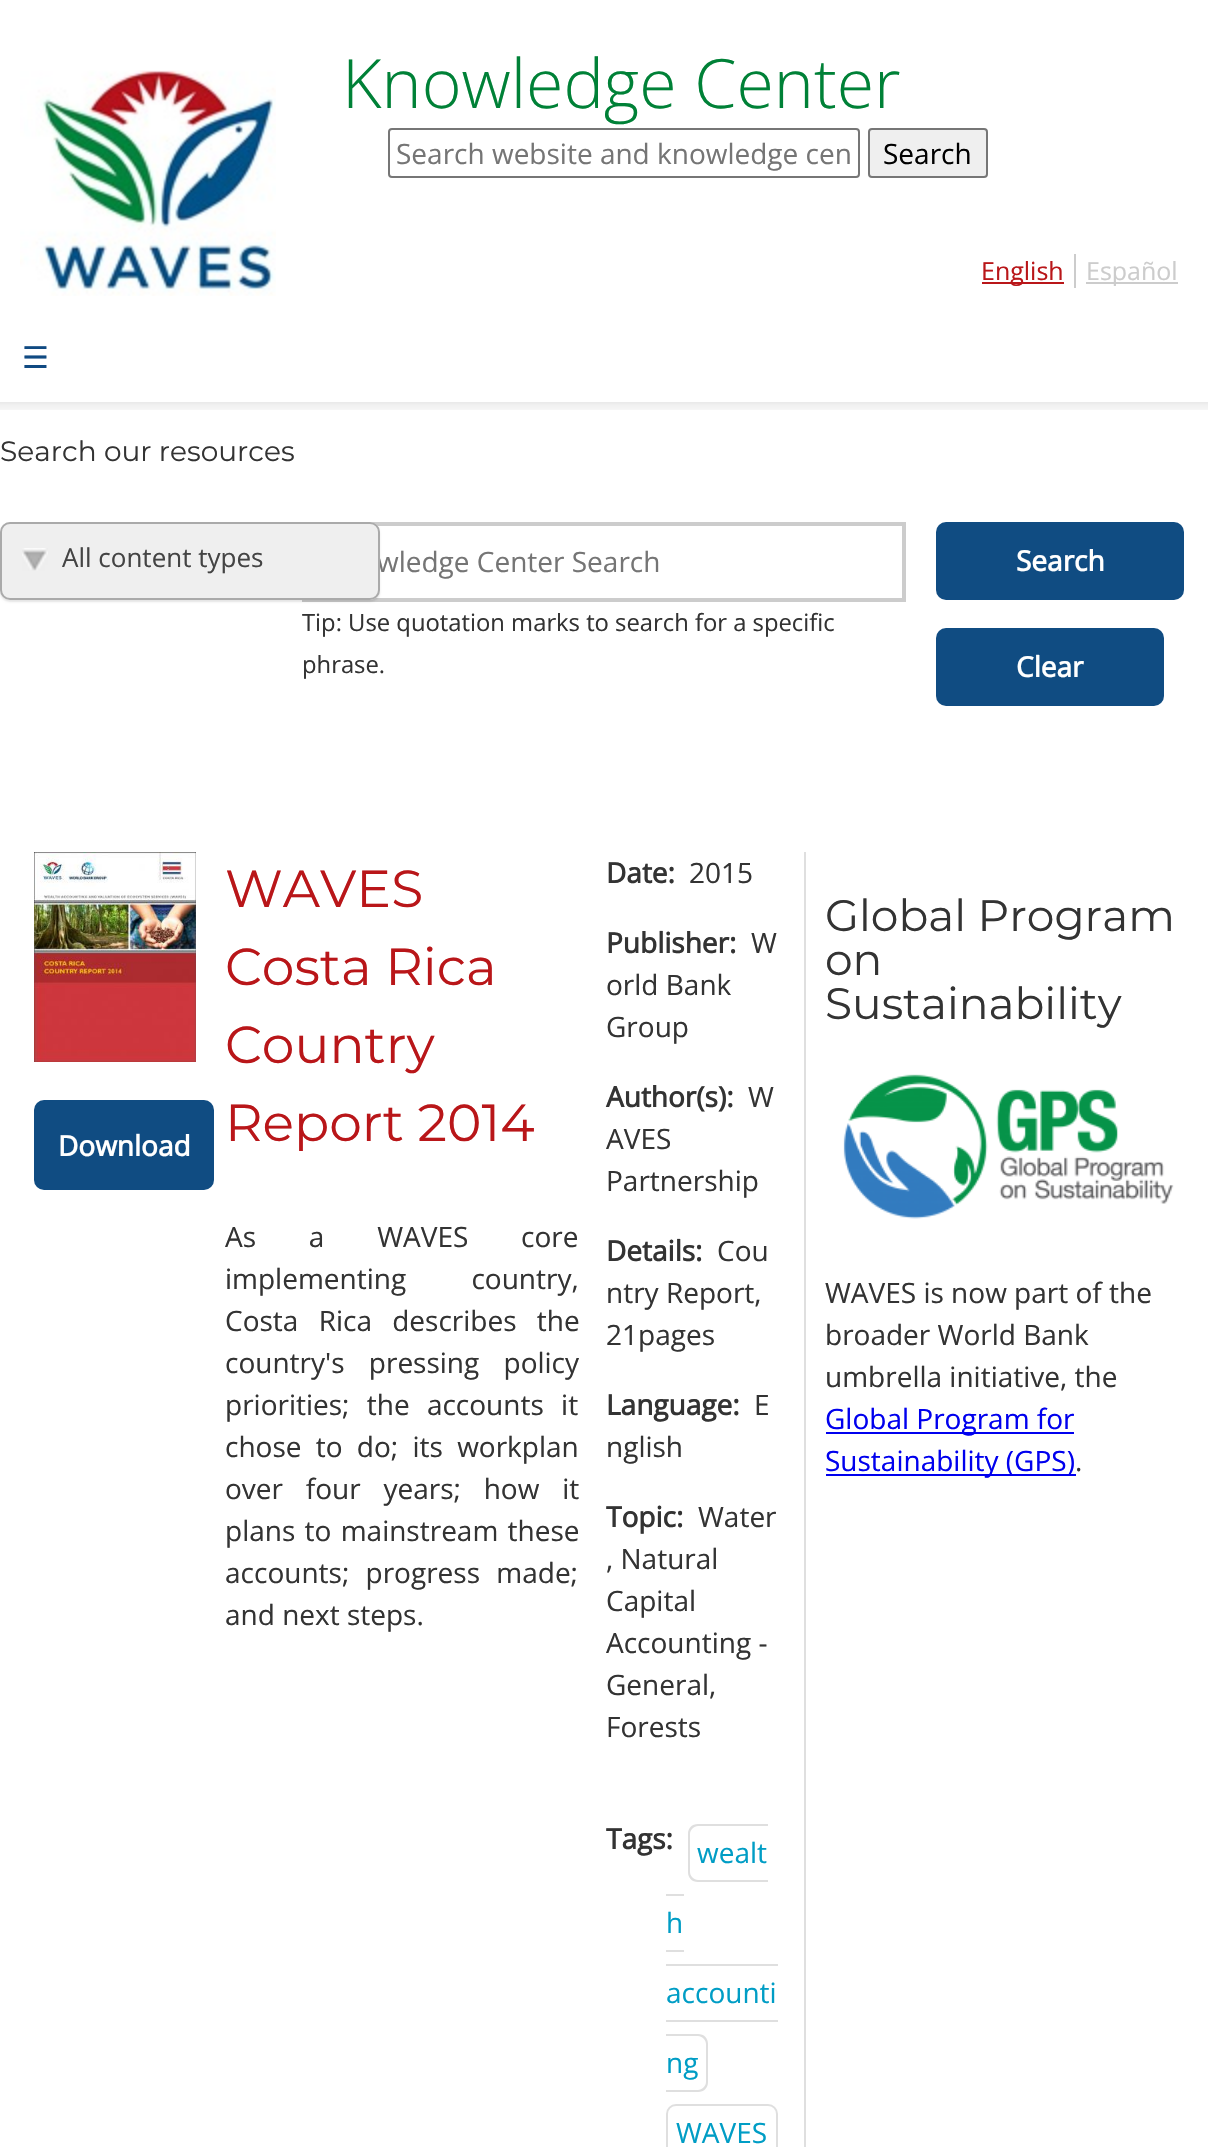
void draw(SkCanvas* canvas) {
	SkPaint paint;
	paint.setAntiAlias(true);
	auto spacedText = [&](const char* s, float x, float y, const SkFont& font, const SkPaint& ink, float letter, float word) {
		std::vector<SkGlyphID> glyphs(font.countText(s, strlen(s), SkTextEncoding::kUTF8));
		std::vector<float> xs(glyphs.size());
		font.textToGlyphs(s, strlen(s), SkTextEncoding::kUTF8, glyphs);
		font.getXPos(glyphs, xs, x);
		float extra = 0;
		for (size_t i = 0; i < glyphs.size(); i++) {
			xs[i] += extra;
			extra += letter + word * (glyphs[i] == font.unicharToGlyph(' '));
		}
		canvas->drawTextBlob(SkTextBlob::MakeFromPosHGlyphs(glyphs, xs, y, font), 0, 0, ink);
	};
	auto svgPath = [&](const char* data, bool evenOdd = false) {
		SkPath result = *SkParsePath::FromSVGString(data);
		if (evenOdd) result.setFillType(SkPathFillType::kEvenOdd);
		return result;
	};
	canvas->clear(0xffffffff);
	SkFont f1(fontMgr->matchFamilyStyle("Open Sans", SkFontStyle(300, SkFontStyle::kNormal_Width, SkFontStyle::kUpright_Slant)), 68);
	f1.setSubpixel(true);
	paint.setColor(0xff008137);
	canvas->drawString("Knowledge Center", 342, 108, f1, paint);
	paint.setStroke(true);
	paint.setStrokeWidth(2);
	paint.setColor(0xff767676);
	canvas->drawRoundRect(SkRect::MakeXYWH(389, 129, 470, 48), 3, 3, paint);
	SkFont f2(fontMgr->matchFamilyStyle("Open Sans", SkFontStyle::Normal()), 28);
	f2.setSubpixel(true);
	paint.setStroke(false);
	paint.setColor(0xff757575);
	canvas->drawString("Search website and knowledge cen", 396, 164, f2, paint);
	paint.setColor(0xffefefef);
	canvas->drawRoundRect(SkRect::MakeXYWH(869, 129, 118, 48), 3, 3, paint);
	paint.setStroke(true);
	paint.setColor(0xff767676);
	canvas->drawRoundRect(SkRect::MakeXYWH(869, 129, 118, 48), 3, 3, paint);
	paint.setStroke(false);
	paint.setColor(0xff000000);
	canvas->drawString("Search", 883, 164, f2, paint);
	paint.setColor(0xffb91619);
	canvas->drawRect(SkRect::MakeXYWH(982, 282, 82, 2), paint);
	SkFont f3(fontMgr->matchFamilyStyle("Open Sans", SkFontStyle::Normal()), 25);
	f3.setSubpixel(true);
	canvas->drawString("English", 981, 280, f3, paint);
	paint.setColor(0xffcccccc);
	canvas->drawRect(SkRect::MakeXYWH(1074, 254, 2, 34), paint);
	canvas->drawRect(SkRect::MakeXYWH(1086, 282, 92, 2), paint);
	canvas->drawString("Español", 1086, 280, f3, paint);
	SkFont f4(fontMgr->matchFamilyStyle("DejaVu Sans", SkFontStyle::Normal()), 30);
	f4.setSubpixel(true);
	paint.setColor(0xff104a82);
	canvas->drawString("☰", 22, 368, f4, paint);
	canvas->drawImageRect(SkImages::DeferredFromEncodedData(SkData::MakeFromFileName("img1.png")), SkRect::MakeXYWH(20, 70, 256, 226), SkSamplingOptions());
	canvas->drawImageRect(SkImages::DeferredFromEncodedData(SkData::MakeFromFileName("img2.png")), SkRect::MakeXYWH(0, 402, 1208, 8), SkSamplingOptions());
	SkFont f5(fontMgr->matchFamilyStyle("Montserrat", SkFontStyle::Normal()), 28);
	f5.setSubpixel(true);
	paint.setColor(0xff333333);
	canvas->drawString("Search our resources", 0, 461, f5, paint);
	paint.setStroke(true);
	paint.setStrokeWidth(4);
	paint.setColor(0xffcccccc);
	canvas->drawRect(SkRect::MakeXYWH(304, 524, 600, 76), paint);
	paint.setStroke(false);
	paint.setColor(0x1a000000);
	paint.setMaskFilter(SkMaskFilter::MakeBlur(kNormal_SkBlurStyle, 1));
	canvas->drawRoundRect(SkRect::MakeXYWH(0, 524, 380, 78), 10, 10, paint);
	paint.setMaskFilter(nullptr);
	paint.setColor(0xff757575);
	canvas->drawString("wledge Center Search", 377, 572, f2, paint);
	paint.setColor(0xffefefef);
	canvas->drawRoundRect(SkRect::MakeXYWH(0, 522, 380, 78), 10, 10, paint);
	canvas->drawImageRect(SkImages::DeferredFromEncodedData(SkData::MakeFromFileName("img3.png")), SkRect::MakeXYWH(22, 548, 26, 23), SkSamplingOptions());
	paint.setStroke(true);
	paint.setStrokeWidth(2);
	paint.setColor(0xffaaaaaa);
	canvas->drawRoundRect(SkRect::MakeXYWH(1, 523, 378, 76), 9, 9, paint);
	SkFont f6(fontMgr->matchFamilyStyle("Open Sans", SkFontStyle::Normal()), 26);
	f6.setSubpixel(true);
	paint.setStroke(false);
	paint.setColor(0xff444444);
	canvas->drawString("All content types", 62, 567, f6, paint);
	SkFont f7(fontMgr->matchFamilyStyle("Open Sans", SkFontStyle::Normal()), 23.8);
	f7.setSubpixel(true);
	paint.setColor(0xff333333);
	canvas->drawString("Tip: Use quotation marks to search for a specific", 302, 631, f7, paint);
	canvas->drawString("phrase.", 302, 673, f7, paint);
	paint.setColor(0xff104c82);
	canvas->drawRoundRect(SkRect::MakeXYWH(936, 522, 248, 78), 10, 10, paint);
	SkFont f8(fontMgr->matchFamilyStyle("Open Sans", SkFontStyle::Bold()), 28);
	f8.setSubpixel(true);
	paint.setColor(0xffffffff);
	canvas->drawString("Search", 1016, 571, f8, paint);
	paint.setColor(0xff104c82);
	canvas->drawRoundRect(SkRect::MakeXYWH(936, 628, 228, 78), 10, 10, paint);
	paint.setColor(0xffffffff);
	canvas->drawString("Clear", 1016, 677, f8, paint);
	paint.setColor(0xffdfdfdf);
	canvas->drawRect(SkRect::MakeXYWH(804, 852, 2, 1295), paint);
	canvas->drawImageRect(SkImages::DeferredFromEncodedData(SkData::MakeFromFileName("img4.png")), SkRect::MakeXYWH(34, 852, 162, 210), SkSamplingOptions());
	paint.setColor(0xff104c82);
	canvas->drawRoundRect(SkRect::MakeXYWH(34, 1100, 180, 90), 10, 10, paint);
	paint.setColor(0xffffffff);
	canvas->drawString("Download", 58, 1156, f8, paint);
	SkFont f9(fontMgr->matchFamilyStyle("Montserrat", SkFontStyle::Normal()), 52);
	f9.setSubpixel(true);
	paint.setColor(0xffb91619);
	canvas->drawString("WAVES", 225, 907, f9, paint);
	canvas->drawString("Costa Rica", 225, 985, f9, paint);
	canvas->drawString("Country", 225, 1063, f9, paint);
	canvas->drawString("Report 2014", 225, 1141, f9, paint);
	paint.setColor(0xff333333);
	spacedText("As a WAVES core", 225, 1247, f2, paint, 0, 45.5);
	spacedText("implementing country,", 225, 1289, f2, paint, 0, 58);
	spacedText("Costa Rica describes the", 225, 1331, f2, paint, 0, 13);
	spacedText("country's pressing policy", 225, 1373, f2, paint, 0, 17);
	spacedText("priorities; the accounts it", 225, 1415, f2, paint, 0, 10);
	spacedText("chose to do; its workplan", 225, 1457, f2, paint, 0, 7);
	spacedText("over four years; how it", 225, 1499, f2, paint, 0, 15.5);
	spacedText("plans to mainstream these", 225, 1541, f2, paint, 0, 2);
	spacedText("accounts; progress made;", 225, 1583, f2, paint, 0, 9);
	canvas->drawString("and next steps.", 225, 1625, f2, paint);
	canvas->drawString("Date:", 606, 883, f8, paint);
	canvas->drawString("2015", 689, 883, f2, paint);
	canvas->drawString("Publisher:", 606, 953, f8, paint);
	canvas->drawString("W", 751, 953, f2, paint);
	canvas->drawString("orld Bank", 606, 995, f2, paint);
	canvas->drawString("Group", 606, 1037, f2, paint);
	canvas->drawString("Author(s):", 606, 1107, f8, paint);
	canvas->drawString("W", 748, 1107, f2, paint);
	canvas->drawString("AVES", 606, 1149, f2, paint);
	canvas->drawString("Partnership", 606, 1191, f2, paint);
	canvas->drawString("Details:", 606, 1261, f8, paint);
	canvas->drawString("Cou", 717, 1261, f2, paint);
	canvas->drawString("ntry Report,", 606, 1303, f2, paint);
	canvas->drawString("21pages", 606, 1345, f2, paint);
	canvas->drawString("E", 754, 1415, f2, paint);
	canvas->drawString("nglish", 606, 1457, f2, paint);
	canvas->drawString("Language:", 606, 1415, f8, paint);
	canvas->drawString("Topic:", 606, 1527, f8, paint);
	canvas->drawString("Water", 698, 1527, f2, paint);
	canvas->drawString(", Natural", 606, 1569, f2, paint);
	canvas->drawString("Capital", 606, 1611, f2, paint);
	canvas->drawString("Accounting -", 606, 1653, f2, paint);
	canvas->drawString("General,", 606, 1695, f2, paint);
	canvas->drawString("Forests", 606, 1737, f2, paint);
	canvas->drawString("Tags:", 606, 1849, f8, paint);
	paint.setColor(0xffdfdfdf);
	canvas->drawPath(svgPath("M698 1824H768V1882H698C692 1882 688 1878 688 1872V1834C688 1828 692 1824 698 1824ZM698 1826H768V1880H698C694 1880 690 1876 690 1872V1834C690 1830 694 1826 698 1826Z", true), paint);
	paint.setColor(0xff009dc5);
	canvas->drawString("wealt", 697, 1863, f2, paint);
	canvas->drawString("h", 666, 1933, f2, paint);
	paint.setColor(0xffdfdfdf);
	canvas->drawRect(SkRect::MakeXYWH(666, 1894, 18, 2), paint);
	canvas->drawRect(SkRect::MakeXYWH(666, 1950, 18, 2), paint);
	paint.setColor(0xff009dc5);
	canvas->drawString("accounti", 666, 2003, f2, paint);
	paint.setColor(0xffdfdfdf);
	canvas->drawRect(SkRect::MakeXYWH(666, 1964, 112, 2), paint);
	canvas->drawRect(SkRect::MakeXYWH(666, 2020, 112, 2), paint);
	canvas->drawPath(svgPath("M666 2034H698C704 2034 708 2038 708 2044V2082C708 2088 704 2092 698 2092H666ZM666 2036H698C702 2036 706 2040 706 2044V2082C706 2086 702 2090 698 2090H666Z", true), paint);
	paint.setColor(0xff009dc5);
	canvas->drawString("ng", 666, 2073, f2, paint);
	paint.setStroke(true);
	paint.setColor(0xffdfdfdf);
	canvas->drawRoundRect(SkRect::MakeXYWH(667, 2105, 110, 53), 9, 9, paint);
	paint.setStroke(false);
	paint.setColor(0xff009dc5);
	canvas->drawString("WAVES", 676, 2143, f2, paint);
	SkFont f10(fontMgr->matchFamilyStyle("Montserrat", SkFontStyle::Normal()), 44);
	f10.setSubpixel(true);
	paint.setColor(0xff333333);
	canvas->drawString("Global Program", 825, 931, f10, paint);
	canvas->drawString("on", 825, 975, f10, paint);
	canvas->drawString("Sustainability", 825, 1019, f10, paint);
	canvas->drawImageRect(SkImages::DeferredFromEncodedData(SkData::MakeFromFileName("img5.png")), SkRect::MakeXYWH(843, 1074, 331, 145), SkSamplingOptions());
	canvas->drawString("WAVES is now part of the", 825, 1303, f2, paint);
	canvas->drawString("broader World Bank", 825, 1345, f2, paint);
	canvas->drawString("umbrella initiative, the", 825, 1387, f2, paint);
	paint.setColor(0xff0000ee);
	canvas->drawRect(SkRect::MakeXYWH(826, 1432, 248, 2), paint);
	canvas->drawString("Global Program for", 825, 1429, f2, paint);
	canvas->drawRect(SkRect::MakeXYWH(826, 1474, 250, 2), paint);
	canvas->drawString("Sustainability (GPS)", 825, 1471, f2, paint);
	paint.setColor(0xff333333);
	canvas->drawString(".", 1075, 1471, f2, paint);
}
